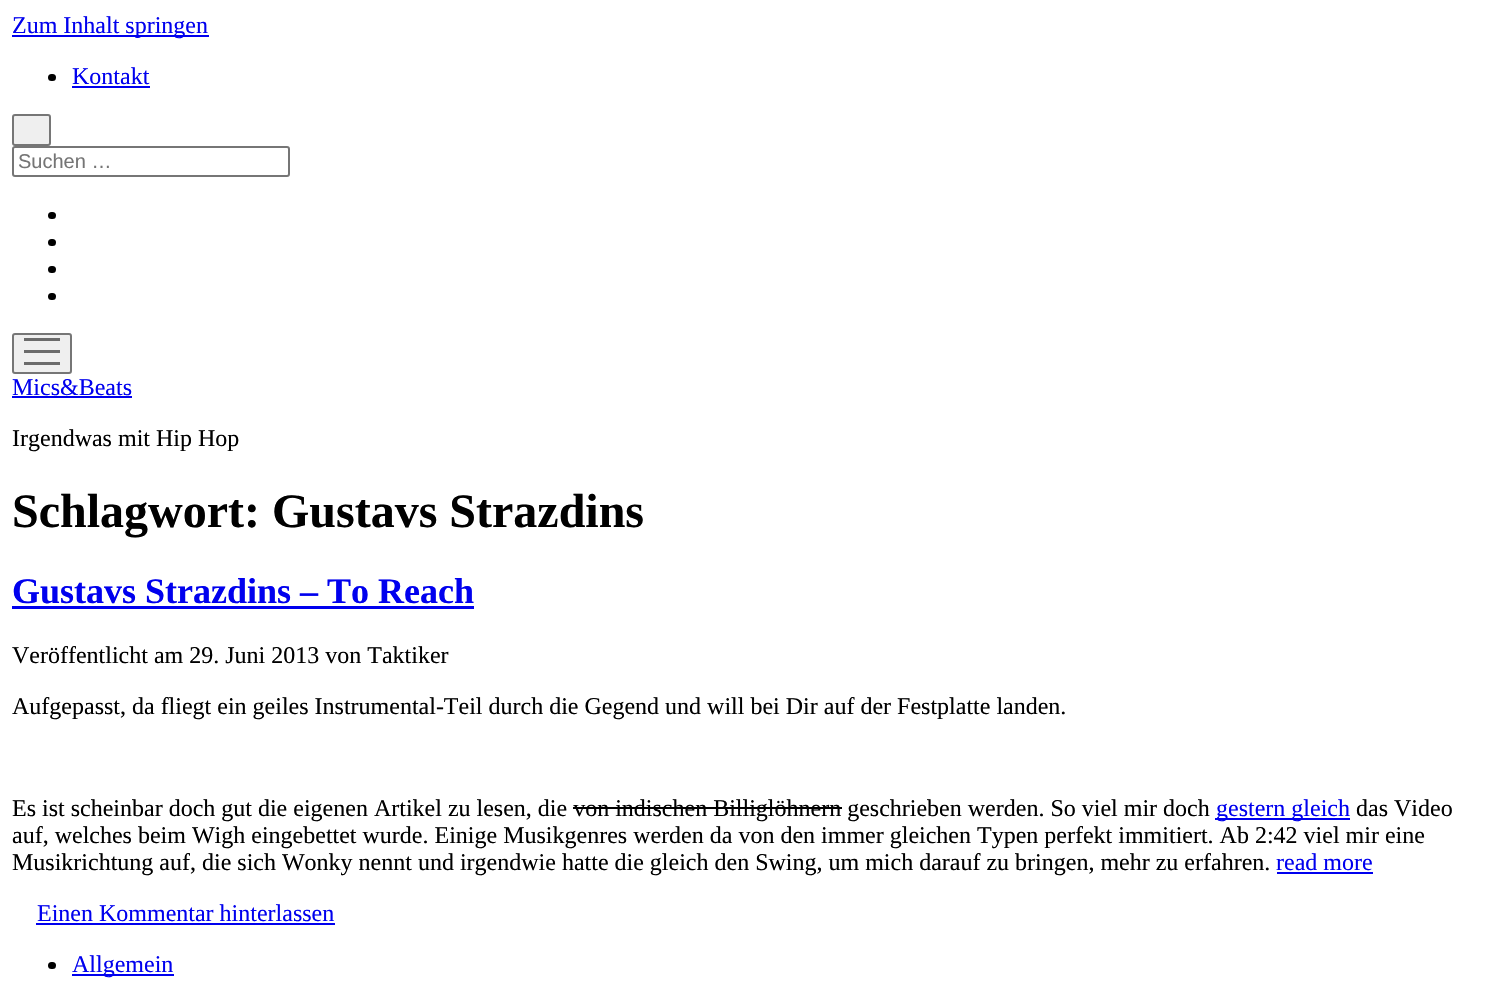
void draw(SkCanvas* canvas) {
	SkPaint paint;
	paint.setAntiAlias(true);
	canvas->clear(0xffffffff);
	paint.setColor(0xff0000ee);
	canvas->drawRect(SkRect::MakeXYWH(12, 35, 197, 2), paint);
	SkFont f1(fontMgr->matchFamilyStyle("Liberation Serif", SkFontStyle::Normal()), 24);
	f1.setSubpixel(true);
	canvas->drawString("Zum Inhalt springen", 12, 33, f1, paint);
	paint.setColor(0xff000000);
	canvas->drawRoundRect(SkRect::MakeXYWH(48, 74, 8, 7), 3.5, 3.5, paint);
	paint.setColor(0xff0000ee);
	canvas->drawString("Kontakt", 72, 84, f1, paint);
	canvas->drawRect(SkRect::MakeXYWH(72, 86, 78, 2), paint);
	paint.setColor(0xffefefef);
	canvas->drawRoundRect(SkRect::MakeXYWH(13, 115, 37, 30), 2, 2, paint);
	paint.setStroke(true);
	paint.setStrokeWidth(2);
	paint.setColor(0xff767676);
	canvas->drawRoundRect(SkRect::MakeXYWH(13, 115, 37, 30), 2, 2, paint);
	canvas->drawRoundRect(SkRect::MakeXYWH(13, 147, 276, 29), 2, 2, paint);
	SkFont f2(fontMgr->matchFamilyStyle("Liberation Sans", SkFontStyle::Normal()), 20);
	f2.setSubpixel(true);
	paint.setStroke(false);
	paint.setColor(0xff757575);
	canvas->drawString("Suchen …", 18, 168, f2, paint);
	paint.setColor(0xff000000);
	canvas->drawRoundRect(SkRect::MakeXYWH(48, 212, 8, 7), 3.5, 3.5, paint);
	canvas->drawRoundRect(SkRect::MakeXYWH(48, 239, 8, 7), 3.5, 3.5, paint);
	canvas->drawRoundRect(SkRect::MakeXYWH(48, 266, 8, 7), 3.5, 3.5, paint);
	canvas->drawRoundRect(SkRect::MakeXYWH(48, 293, 8, 7), 3.5, 3.5, paint);
	paint.setColor(0xffefefef);
	canvas->drawRoundRect(SkRect::MakeXYWH(13, 334, 58, 39), 2, 2, paint);
	paint.setStroke(true);
	paint.setColor(0xff767676);
	canvas->drawRoundRect(SkRect::MakeXYWH(13, 334, 58, 39), 2, 2, paint);
	paint.setStroke(false);
	paint.setColor(0xff6b6b6b);
	canvas->drawRect(SkRect::MakeXYWH(24, 338, 36, 3), paint);
	canvas->drawRect(SkRect::MakeXYWH(24, 350, 36, 3), paint);
	canvas->drawRect(SkRect::MakeXYWH(24, 362, 36, 3), paint);
	paint.setColor(0xff0000ee);
	canvas->drawString("Mics&Beats", 12, 395, f1, paint);
	canvas->drawRect(SkRect::MakeXYWH(12, 396, 120, 2), paint);
	paint.setColor(0xff000000);
	canvas->drawString("Irgendwas mit Hip Hop", 12, 446, f1, paint);
	SkFont f3(fontMgr->matchFamilyStyle("Liberation Serif", SkFontStyle::Bold()), 48);
	f3.setSubpixel(true);
	canvas->drawString("Schlagwort: Gustavs Strazdins", 12, 527, f3, paint);
	SkFont f4(fontMgr->matchFamilyStyle("Liberation Serif", SkFontStyle::Bold()), 36);
	f4.setSubpixel(true);
	paint.setColor(0xff0000ee);
	canvas->drawString("Gustavs Strazdins – To Reach", 12, 603, f4, paint);
	canvas->drawRect(SkRect::MakeXYWH(12, 606, 462, 3), paint);
	paint.setColor(0xff000000);
	canvas->drawString("Veröffentlicht am 29. Juni 2013 von Taktiker", 12, 663, f1, paint);
	canvas->drawString("Aufgepasst, da fliegt ein geiles Instrumental-Teil durch die Gegend und will bei Dir auf der Festplatte landen.", 12, 714, f1, paint);
	canvas->drawString("Es ist scheinbar doch gut die eigenen Artikel zu lesen, die von indischen Billiglöhnern geschrieben werden. So viel mir doch", 12, 816, f1, paint);
	paint.setColor(0xff0000ee);
	canvas->drawRect(SkRect::MakeXYWH(1215, 818, 135, 2), paint);
	canvas->drawString("gestern gleich", 1216, 816, f1, paint);
	paint.setColor(0xff000000);
	canvas->drawString("das Video", 1356, 816, f1, paint);
	canvas->drawRect(SkRect::MakeXYWH(573, 807, 269, 2), paint);
	canvas->drawString("auf, welches beim Wigh eingebettet wurde. Einige Musikgenres werden da von den immer gleichen Typen perfekt immitiert. Ab 2:42 viel mir eine", 12, 843, f1, paint);
	canvas->drawString("Musikrichtung auf, die sich Wonky nennt und irgendwie hatte die gleich den Swing, um mich darauf zu bringen, mehr zu erfahren.", 12, 870, f1, paint);
	paint.setColor(0xff0000ee);
	canvas->drawString("read more", 1276, 870, f1, paint);
	canvas->drawRect(SkRect::MakeXYWH(1277, 872, 96, 2), paint);
	canvas->drawString("Einen Kommentar hinterlassen", 37, 921, f1, paint);
	canvas->drawRect(SkRect::MakeXYWH(36, 923, 299, 2), paint);
	paint.setColor(0xff000000);
	canvas->drawRoundRect(SkRect::MakeXYWH(48, 962, 8, 7), 3.5, 3.5, paint);
	paint.setColor(0xff0000ee);
	canvas->drawRect(SkRect::MakeXYWH(72, 974, 102, 2), paint);
	canvas->drawString("Allgemein", 72, 972, f1, paint);
}
